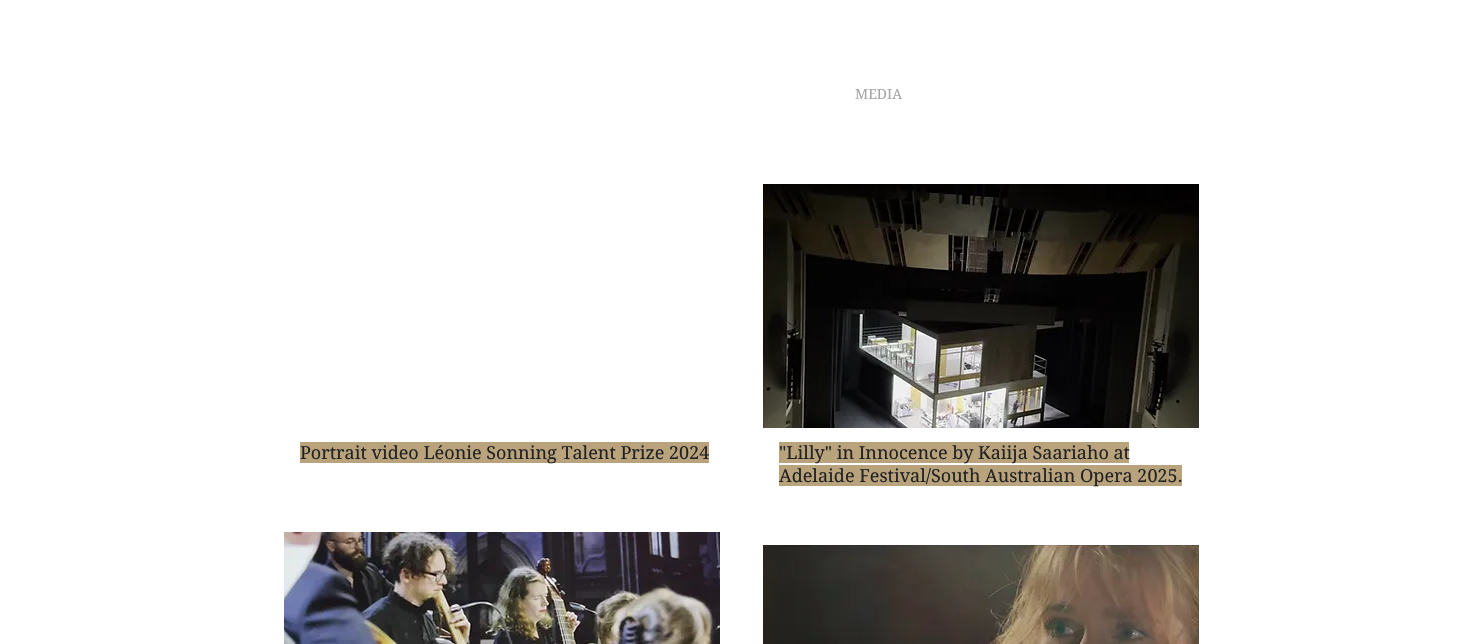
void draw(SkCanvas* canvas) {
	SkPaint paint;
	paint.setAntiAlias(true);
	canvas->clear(0xffffffff);
	SkFont f1(fontMgr->matchFamilyStyle("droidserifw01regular", SkFontStyle::Normal()), 14);
	f1.setSubpixel(true);
	paint.setColor(0xffa7a5a5);
	canvas->drawString("MEDIA", 855, 99, f1, paint);
	canvas->drawImageRect(SkImages::DeferredFromEncodedData(SkData::MakeFromFileName("img1.png")), SkRect::MakeXYWH(763, 184, 436, 244), SkSamplingOptions());
	paint.setColor(0xffb9a37d);
	canvas->drawRect(SkRect::MakeXYWH(300, 442, 409, 21), paint);
	SkFont f2(fontMgr->matchFamilyStyle("droidserifw01regular", SkFontStyle::Normal()), 18);
	f2.setSubpixel(true);
	paint.setColor(0xff222222);
	canvas->drawString("Portrait video Léonie Sonning Talent Prize 2024", 300, 459, f2, paint);
	paint.setColor(0xffb9a37d);
	canvas->drawRect(SkRect::MakeXYWH(779, 442, 350, 21), paint);
	paint.setColor(0xff222222);
	canvas->drawString("\"Lilly\" in Innocence by Kaiija Saariaho at", 779, 459, f2, paint);
	paint.setColor(0xffb9a37d);
	canvas->drawRect(SkRect::MakeXYWH(779, 465, 403, 21), paint);
	paint.setColor(0xff222222);
	canvas->drawString("Adelaide Festival/South Australian Opera 2025.", 779, 482, f2, paint);
	canvas->drawImageRect(SkImages::DeferredFromEncodedData(SkData::MakeFromFileName("img2.png")), SkRect::MakeXYWH(284, 532, 436, 112), SkSamplingOptions());
	canvas->drawImageRect(SkImages::DeferredFromEncodedData(SkData::MakeFromFileName("img3.png")), SkRect::MakeXYWH(763, 545, 436, 99), SkSamplingOptions());
}
